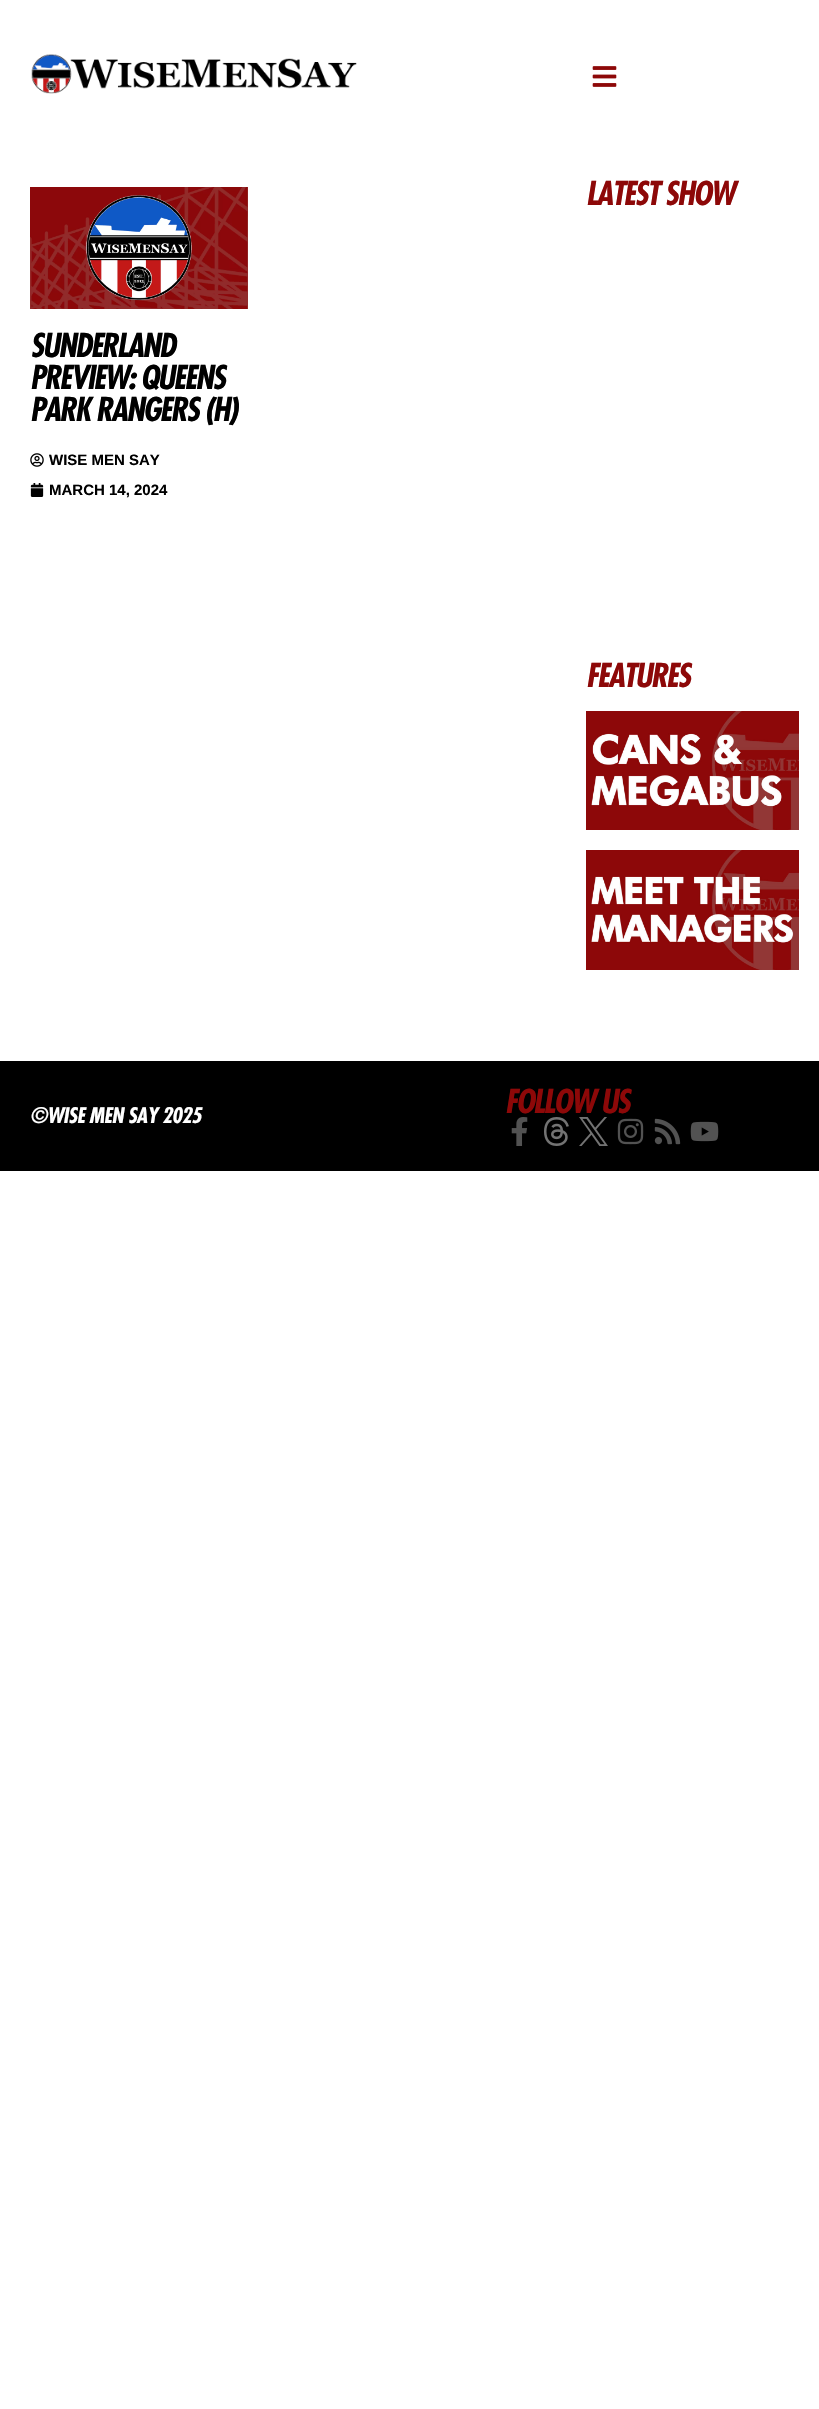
void draw(SkCanvas* canvas) {
	SkPaint paint;
	paint.setAntiAlias(true);
	auto spacedText = [&](const char* s, float x, float y, const SkFont& font, const SkPaint& ink, float letter, float word) {
		std::vector<SkGlyphID> glyphs(font.countText(s, strlen(s), SkTextEncoding::kUTF8));
		std::vector<float> xs(glyphs.size());
		font.textToGlyphs(s, strlen(s), SkTextEncoding::kUTF8, glyphs);
		font.getXPos(glyphs, xs, x);
		float extra = 0;
		for (size_t i = 0; i < glyphs.size(); i++) {
			xs[i] += extra;
			extra += letter + word * (glyphs[i] == font.unicharToGlyph(' '));
		}
		canvas->drawTextBlob(SkTextBlob::MakeFromPosHGlyphs(glyphs, xs, y, font), 0, 0, ink);
	};
	canvas->clear(0xffffffff);
	canvas->drawImageRect(SkImages::DeferredFromEncodedData(SkData::MakeFromFileName("img1.png")), SkRect::MakeXYWH(31, 54, 326, 40), SkSamplingOptions());
	canvas->drawImageRect(SkImages::DeferredFromEncodedData(SkData::MakeFromFileName("img2.png")), SkRect::MakeXYWH(592, 66, 25, 21), SkSamplingOptions());
	canvas->drawImageRect(SkImages::DeferredFromEncodedData(SkData::MakeFromFileName("img3.png")), SkRect::MakeXYWH(30, 187, 218, 122), SkSamplingOptions());
	SkFont f1(fontMgr->matchFamilyStyle("Futura", SkFontStyle::BoldItalic()), 32);
	f1.setSubpixel(true);
	paint.setColor(0xff000000);
	spacedText("SUNDERLAND", 30, 357, f1, paint, -1.6, 0);
	spacedText("PREVIEW: QUEENS", 30, 389, f1, paint, -1.6, 0);
	spacedText("PARK RANGERS (H)", 30, 421, f1, paint, -1.6, 0);
	canvas->drawImageRect(SkImages::DeferredFromEncodedData(SkData::MakeFromFileName("img4.png")), SkRect::MakeXYWH(30, 453, 14, 14), SkSamplingOptions());
	SkFont f2(fontMgr->matchFamilyStyle("Liberation Sans", SkFontStyle::Bold()), 15);
	f2.setSubpixel(true);
	canvas->drawString("WISE MEN SAY", 49, 465, f2, paint);
	canvas->drawImageRect(SkImages::DeferredFromEncodedData(SkData::MakeFromFileName("img5.png")), SkRect::MakeXYWH(30, 483, 14, 14), SkSamplingOptions());
	canvas->drawString("MARCH 14, 2024", 49, 495, f2, paint);
	paint.setColor(0xff8d0808);
	spacedText("LATEST SHOW", 586, 205, f1, paint, -1.6, 0);
	spacedText("FEATURES", 586, 687, f1, paint, -1.6, 0);
	canvas->drawImageRect(SkImages::DeferredFromEncodedData(SkData::MakeFromFileName("img6.png")), SkRect::MakeXYWH(586, 711, 213, 119), SkSamplingOptions());
	canvas->drawImageRect(SkImages::DeferredFromEncodedData(SkData::MakeFromFileName("img7.png")), SkRect::MakeXYWH(586, 850, 213, 120), SkSamplingOptions());
	paint.setColor(0xff000000);
	canvas->drawRect(SkRect::MakeXYWH(0, 1061, 819, 110), paint);
	SkFont f3(fontMgr->matchFamilyStyle("Futura", SkFontStyle::BoldItalic()), 21);
	f3.setSubpixel(true);
	paint.setColor(0xffffffff);
	spacedText("©WISE MEN SAY 2025", 30, 1123, f3, paint, -0.5, 0);
	paint.setColor(0xff8d0808);
	spacedText("FOLLOW US", 505, 1113, f1, paint, -1.6, 0);
	canvas->drawImageRect(SkImages::DeferredFromEncodedData(SkData::MakeFromFileName("img8.png")), SkRect::MakeXYWH(511, 1117, 17, 29), SkSamplingOptions());
	canvas->drawImageRect(SkImages::DeferredFromEncodedData(SkData::MakeFromFileName("img9.png")), SkRect::MakeXYWH(544, 1117, 25, 29), SkSamplingOptions());
	canvas->drawImageRect(SkImages::DeferredFromEncodedData(SkData::MakeFromFileName("img10.png")), SkRect::MakeXYWH(579, 1117, 29, 29), SkSamplingOptions());
	canvas->drawImageRect(SkImages::DeferredFromEncodedData(SkData::MakeFromFileName("img11.png")), SkRect::MakeXYWH(617, 1118, 27, 27), SkSamplingOptions());
	canvas->drawImageRect(SkImages::DeferredFromEncodedData(SkData::MakeFromFileName("img12.png")), SkRect::MakeXYWH(654, 1118, 27, 27), SkSamplingOptions());
	canvas->drawImageRect(SkImages::DeferredFromEncodedData(SkData::MakeFromFileName("img13.png")), SkRect::MakeXYWH(690, 1121, 29, 21), SkSamplingOptions());
}
